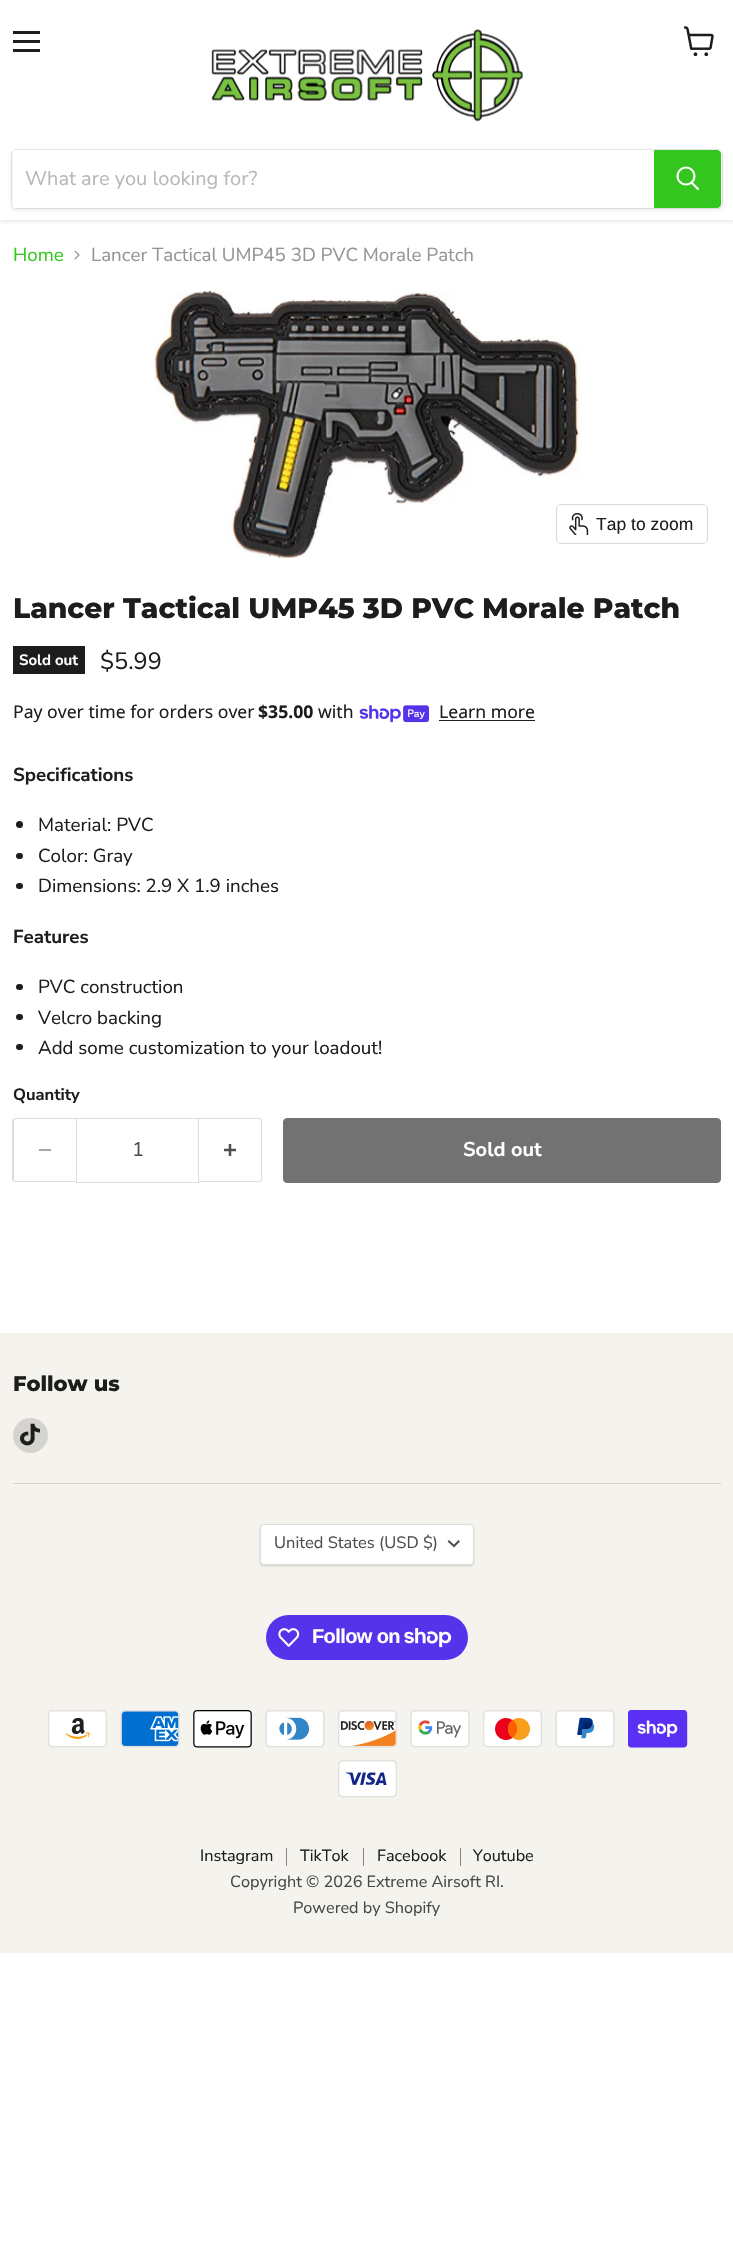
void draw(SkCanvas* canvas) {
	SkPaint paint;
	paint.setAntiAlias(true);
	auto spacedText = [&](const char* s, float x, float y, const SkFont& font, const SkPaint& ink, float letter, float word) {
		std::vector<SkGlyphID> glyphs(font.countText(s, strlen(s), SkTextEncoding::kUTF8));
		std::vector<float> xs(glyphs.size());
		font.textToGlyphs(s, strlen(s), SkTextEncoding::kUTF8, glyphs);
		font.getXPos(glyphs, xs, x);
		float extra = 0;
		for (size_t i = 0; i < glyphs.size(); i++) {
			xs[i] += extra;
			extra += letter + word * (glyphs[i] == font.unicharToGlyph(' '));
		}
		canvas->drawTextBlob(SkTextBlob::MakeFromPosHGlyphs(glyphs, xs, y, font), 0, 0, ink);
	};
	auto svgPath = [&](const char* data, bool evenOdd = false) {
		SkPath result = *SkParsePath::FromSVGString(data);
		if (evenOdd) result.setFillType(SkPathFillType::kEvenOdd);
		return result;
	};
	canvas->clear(0xffffffff);
	canvas->save();
	canvas->clipRect(SkRect::MakeXYWH(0, 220, 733, 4));
	paint.setColor(0x40808080);
	paint.setMaskFilter(SkMaskFilter::MakeBlur(kNormal_SkBlurStyle, 2.5));
	canvas->drawRect(SkRect::MakeXYWH(0, 1, 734, 220), paint);
	paint.setMaskFilter(nullptr);
	canvas->restore();
	paint.setColor(0xff1d1d1d);
	canvas->drawRect(SkRect::MakeXYWH(13, 31, 27, 3), paint);
	canvas->drawRect(SkRect::MakeXYWH(13, 40, 27, 3), paint);
	canvas->drawRect(SkRect::MakeXYWH(13, 49, 27, 3), paint);
	canvas->drawImageRect(SkImages::DeferredFromEncodedData(SkData::MakeFromFileName("img1.png")), SkRect::MakeXYWH(684, 26, 30, 30), SkSamplingOptions());
	canvas->drawImageRect(SkImages::DeferredFromEncodedData(SkData::MakeFromFileName("img2.png")), SkRect::MakeXYWH(211, 29, 312, 93), SkSamplingOptions());
	paint.setColor(0x1c808080);
	paint.setMaskFilter(SkMaskFilter::MakeBlur(kNormal_SkBlurStyle, 2));
	canvas->drawRoundRect(SkRect::MakeXYWH(11, 151, 712, 60), 5, 5, paint);
	paint.setMaskFilter(nullptr);
	paint.setStroke(true);
	paint.setStrokeWidth(1);
	paint.setColor(0x33808080);
	canvas->drawRoundRect(SkRect::MakeXYWH(11.5, 149.5, 711, 59), 4.5, 4.5, paint);
	paint.setStroke(false);
	paint.setColor(0xffffffff);
	canvas->drawRect(SkRect::MakeXYWH(13, 150, 641, 58), paint);
	SkFont f1(fontMgr->matchFamilyStyle("Nunito Sans", SkFontStyle::Normal()), 20);
	f1.setSubpixel(true);
	paint.setColor(0xffb8b8b8);
	canvas->drawString("What are you looking for?", 25, 185, f1, paint);
	paint.setColor(0xff32c61e);
	canvas->drawPath(svgPath("M654.5 150.5H717C719 150.5 720.5 152 720.5 154V204C720.5 206 719 207.5 717 207.5H654.5Z"), paint);
	paint.setStroke(true);
	canvas->drawPath(svgPath("M654.5 150.5H717C719 150.5 720.5 152 720.5 154V204C720.5 206 719 207.5 717 207.5H654.5Z"), paint);
	paint.setStrokeWidth(2.2);
	paint.setStrokeCap(SkPaint::kRound_Cap);
	paint.setColor(0xffffffff);
	canvas->drawPath(svgPath("M698 189L692 183"), paint);
	paint.setStrokeCap(SkPaint::kButt_Cap);
	canvas->drawCircle(686, 176, 8.5, paint);
	SkFont f2(fontMgr->matchFamilyStyle("Nunito Sans", SkFontStyle::Normal()), 18.75);
	f2.setSubpixel(true);
	paint.setStroke(false);
	paint.setColor(0xff32c61e);
	canvas->drawString("Home", 13, 261, f2, paint);
	canvas->drawImageRect(SkImages::DeferredFromEncodedData(SkData::MakeFromFileName("img3.png")), SkRect::MakeXYWH(74, 250, 6, 10), SkSamplingOptions());
	paint.setColor(0xff949494);
	canvas->drawString("Lancer Tactical UMP45 3D PVC Morale Patch", 91, 261, f2, paint);
	canvas->drawImageRect(SkImages::DeferredFromEncodedData(SkData::MakeFromFileName("img4.png")), SkRect::MakeXYWH(153, 291, 427, 267), SkSamplingOptions());
	paint.setStroke(true);
	paint.setStrokeWidth(1);
	paint.setColor(0xffd9d9d9);
	canvas->drawRoundRect(SkRect::MakeXYWH(556.5, 504.5, 151, 39), 4.5, 4.5, paint);
	canvas->drawImageRect(SkImages::DeferredFromEncodedData(SkData::MakeFromFileName("img5.png")), SkRect::MakeXYWH(569, 513, 20, 22), SkSamplingOptions());
	SkFont f3(fontMgr->matchFamilyStyle("Liberation Sans", SkFontStyle::Normal()), 17.5);
	f3.setSubpixel(true);
	paint.setStroke(false);
	paint.setColor(0xff1d1d1d);
	canvas->drawString("Tap to zoom", 596, 530, f3, paint);
	SkFont f4(fontMgr->matchFamilyStyle("Montserrat", SkFontStyle(800, SkFontStyle::kNormal_Width, SkFontStyle::kUpright_Slant)), 28.1);
	f4.setSubpixel(true);
	canvas->drawString("Lancer Tactical UMP45 3D PVC Morale Patch", 13, 618, f4, paint);
	canvas->drawRect(SkRect::MakeXYWH(13, 646, 72, 28), paint);
	SkFont f5(fontMgr->matchFamilyStyle("Nunito Sans", SkFontStyle::Bold()), 15);
	f5.setSubpixel(true);
	paint.setColor(0xffffffff);
	canvas->drawString("Sold out", 19, 665, f5, paint);
	SkFont f6(fontMgr->matchFamilyStyle("Nunito Sans", SkFontStyle::Normal()), 23.5);
	f6.setSubpixel(true);
	paint.setColor(0xff1d1d1d);
	canvas->drawString("$5.99", 100, 669, f6, paint);
	SkFont f7(fontMgr->matchFamilyStyle("Noto Sans", SkFontStyle::Normal()), 17.6);
	f7.setSubpixel(true);
	canvas->drawString("Pay over time for orders over", 13, 718, f7, paint);
	SkFont f8(fontMgr->matchFamilyStyle("Noto Sans", SkFontStyle::Bold()), 17.6);
	f8.setSubpixel(true);
	canvas->drawString("$35.00", 258, 718, f8, paint);
	canvas->drawString("with", 318, 718, f7, paint);
	canvas->drawImageRect(SkImages::DeferredFromEncodedData(SkData::MakeFromFileName("img6.png")), SkRect::MakeXYWH(359, 705, 70, 18), SkSamplingOptions());
	canvas->drawString("Learn more", 439, 718, f7, paint);
	canvas->drawRect(SkRect::MakeXYWH(439, 720, 96, 1), paint);
	SkFont f9(fontMgr->matchFamilyStyle("Nunito Sans", SkFontStyle::Bold()), 18.75);
	f9.setSubpixel(true);
	canvas->drawString("Specifications", 13, 781, f9, paint);
	canvas->drawCircle(19.5, 824.5, 3.5, paint);
	canvas->drawString("Material: PVC", 38, 831, f2, paint);
	canvas->drawRoundRect(SkRect::MakeXYWH(16, 853, 7, 6), 3, 3, paint);
	canvas->drawString("Color: Gray", 38, 862, f2, paint);
	canvas->drawRoundRect(SkRect::MakeXYWH(16, 883, 7, 6), 3, 3, paint);
	canvas->drawString("Dimensions: 2.9 X 1.9 inches", 38, 892, f2, paint);
	canvas->drawString("Features", 13, 943, f9, paint);
	canvas->drawRoundRect(SkRect::MakeXYWH(16, 984, 7, 6), 3, 3, paint);
	canvas->drawString("PVC construction", 38, 993, f2, paint);
	canvas->drawRoundRect(SkRect::MakeXYWH(16, 1014, 7, 6), 3, 3, paint);
	canvas->drawString("Velcro backing", 38, 1024, f2, paint);
	canvas->drawRoundRect(SkRect::MakeXYWH(16, 1044, 7, 6), 3, 3, paint);
	canvas->drawString("Add some customization to your loadout!", 38, 1054, f2, paint);
	SkFont f10(fontMgr->matchFamilyStyle("Nunito Sans", SkFontStyle::Bold()), 16.5);
	f10.setSubpixel(true);
	canvas->drawString("Quantity", 13, 1100, f10, paint);
	paint.setColor(0xffdddddd);
	canvas->drawPath(svgPath("M16 1118H76V1182H16C14 1182 12 1181 12 1179V1121C12 1119 14 1118 16 1118ZM16 1119H76V1181H16C15 1181 14 1180 14 1179V1121C14 1120 15 1119 16 1119Z", true), paint);
	paint.setColor(0xffa6a6a6);
	canvas->drawRect(SkRect::MakeXYWH(39, 1149, 12, 2), paint);
	paint.setStroke(true);
	paint.setColor(0xffdddddd);
	canvas->drawRect(SkRect::MakeXYWH(76.5, 1118.5, 122, 64), paint);
	paint.setStroke(false);
	paint.setColor(0xff4d4d4d);
	canvas->drawString("1", 132, 1156, f1, paint);
	paint.setColor(0xffdddddd);
	canvas->drawPath(svgPath("M199 1118H259C261 1118 262 1119 262 1121V1179C262 1181 261 1182 259 1182H199ZM199 1119H259C260 1119 261 1120 261 1121V1179C261 1180 260 1181 259 1181H199Z", true), paint);
	canvas->drawImageRect(SkImages::DeferredFromEncodedData(SkData::MakeFromFileName("img7.png")), SkRect::MakeXYWH(224, 1144, 12, 12), SkSamplingOptions());
	paint.setColor(0xff727272);
	canvas->drawRoundRect(SkRect::MakeXYWH(283.5, 1118.5, 437, 64), 3.5, 3.5, paint);
	paint.setStroke(true);
	canvas->drawRoundRect(SkRect::MakeXYWH(283.5, 1118.5, 437, 64), 3.5, 3.5, paint);
	SkFont f11(fontMgr->matchFamilyStyle("Nunito Sans", SkFontStyle::Bold()), 20);
	f11.setSubpixel(true);
	paint.setStroke(false);
	paint.setColor(0xffffffff);
	canvas->drawString("Sold out", 463, 1156, f11, paint);
	paint.setColor(0xfff5f3ed);
	canvas->drawRect(SkRect::MakeXYWH(0, 1333, 733, 620), paint);
	paint.setColor(0xffd5d3ce);
	canvas->drawRect(SkRect::MakeXYWH(13, 1483, 708, 1), paint);
	SkFont f12(fontMgr->matchFamilyStyle("Montserrat", SkFontStyle(800, SkFontStyle::kNormal_Width, SkFontStyle::kUpright_Slant)), 21);
	f12.setSubpixel(true);
	paint.setColor(0xff1d1d1d);
	canvas->drawString("Follow us", 13, 1391, f12, paint);
	paint.setColor(0xffd5d3ce);
	canvas->drawCircle(30.5, 1435.5, 17.5, paint);
	canvas->drawImageRect(SkImages::DeferredFromEncodedData(SkData::MakeFromFileName("img8.png")), SkRect::MakeXYWH(20, 1423, 20, 23), SkSamplingOptions());
	paint.setColor(0x26000000);
	paint.setMaskFilter(SkMaskFilter::MakeBlur(kNormal_SkBlurStyle, 1));
	canvas->drawRoundRect(SkRect::MakeXYWH(260, 1525, 214, 41), 4, 4, paint);
	paint.setMaskFilter(nullptr);
	paint.setColor(0xffffffff);
	canvas->drawRoundRect(SkRect::MakeXYWH(260.5, 1524.5, 213, 40), 3.5, 3.5, paint);
	paint.setStroke(true);
	paint.setColor(0xffdddddd);
	canvas->drawRoundRect(SkRect::MakeXYWH(260.5, 1524.5, 213, 40), 3.5, 3.5, paint);
	SkFont f13(fontMgr->matchFamilyStyle("Nunito Sans", SkFontStyle::Normal()), 16.5);
	f13.setSubpixel(true);
	paint.setStroke(false);
	paint.setColor(0xff4d4d4d);
	canvas->drawString("United States (USD $)", 274, 1548, f13, paint);
	paint.setStroke(true);
	paint.setStrokeWidth(2);
	paint.setStrokeCap(SkPaint::kSquare_Cap);
	canvas->drawPath(svgPath("M454 1546L458.5 1541.5M454 1546L449 1541.5"), paint);
	paint.setStroke(false);
	paint.setColor(0xff5433eb);
	canvas->drawRoundRect(SkRect::MakeXYWH(266, 1615, 202, 45), 22.5, 22.5, paint);
	canvas->drawImageRect(SkImages::DeferredFromEncodedData(SkData::MakeFromFileName("img9.png")), SkRect::MakeXYWH(278, 1628, 22, 19), SkSamplingOptions());
	SkFont f14(fontMgr->matchFamilyStyle("Liberation Sans", SkFontStyle::Bold()), 20);
	f14.setSubpixel(true);
	paint.setColor(0xffffffff);
	spacedText("Follow on", 312, 1643, f14, paint, -0.6, 0);
	canvas->drawImageRect(SkImages::DeferredFromEncodedData(SkData::MakeFromFileName("img10.png")), SkRect::MakeXYWH(404, 1628, 48, 20), SkSamplingOptions());
	canvas->drawImageRect(SkImages::DeferredFromEncodedData(SkData::MakeFromFileName("img11.png")), SkRect::MakeXYWH(48, 1710, 59, 38), SkSamplingOptions());
	canvas->drawImageRect(SkImages::DeferredFromEncodedData(SkData::MakeFromFileName("img12.png")), SkRect::MakeXYWH(120, 1710, 60, 38), SkSamplingOptions());
	canvas->drawImageRect(SkImages::DeferredFromEncodedData(SkData::MakeFromFileName("img13.png")), SkRect::MakeXYWH(193, 1710, 59, 38), SkSamplingOptions());
	canvas->drawImageRect(SkImages::DeferredFromEncodedData(SkData::MakeFromFileName("img14.png")), SkRect::MakeXYWH(265, 1710, 60, 38), SkSamplingOptions());
	canvas->drawImageRect(SkImages::DeferredFromEncodedData(SkData::MakeFromFileName("img15.png")), SkRect::MakeXYWH(338, 1710, 59, 38), SkSamplingOptions());
	canvas->drawImageRect(SkImages::DeferredFromEncodedData(SkData::MakeFromFileName("img16.png")), SkRect::MakeXYWH(410, 1710, 60, 38), SkSamplingOptions());
	canvas->drawImageRect(SkImages::DeferredFromEncodedData(SkData::MakeFromFileName("img17.png")), SkRect::MakeXYWH(483, 1710, 59, 38), SkSamplingOptions());
	canvas->drawImageRect(SkImages::DeferredFromEncodedData(SkData::MakeFromFileName("img18.png")), SkRect::MakeXYWH(555, 1710, 60, 38), SkSamplingOptions());
	canvas->drawImageRect(SkImages::DeferredFromEncodedData(SkData::MakeFromFileName("img19.png")), SkRect::MakeXYWH(628, 1710, 60, 38), SkSamplingOptions());
	canvas->drawImageRect(SkImages::DeferredFromEncodedData(SkData::MakeFromFileName("img20.png")), SkRect::MakeXYWH(338, 1760, 59, 38), SkSamplingOptions());
	paint.setColor(0xff898885);
	canvas->drawRect(SkRect::MakeXYWH(286, 1848, 1, 18), paint);
	SkFont f15(fontMgr->matchFamilyStyle("Nunito Sans", SkFontStyle::Normal()), 16.25);
	f15.setSubpixel(true);
	paint.setColor(0xff1d1d1d);
	canvas->drawString("Instagram", 200, 1861, f15, paint);
	paint.setColor(0xff898885);
	canvas->drawRect(SkRect::MakeXYWH(363, 1848, 1, 18), paint);
	paint.setColor(0xff1d1d1d);
	canvas->drawString("TikTok", 300, 1861, f15, paint);
	paint.setColor(0xff898885);
	canvas->drawRect(SkRect::MakeXYWH(460, 1848, 1, 18), paint);
	paint.setColor(0xff1d1d1d);
	canvas->drawString("Facebook", 377, 1861, f15, paint);
	canvas->drawString("Youtube", 473, 1861, f15, paint);
	paint.setColor(0xff484847);
	canvas->drawString("Copyright © 2026 Extreme Airsoft RI.", 230, 1887, f15, paint);
	canvas->drawString("Powered by Shopify", 293, 1913, f15, paint);
}
